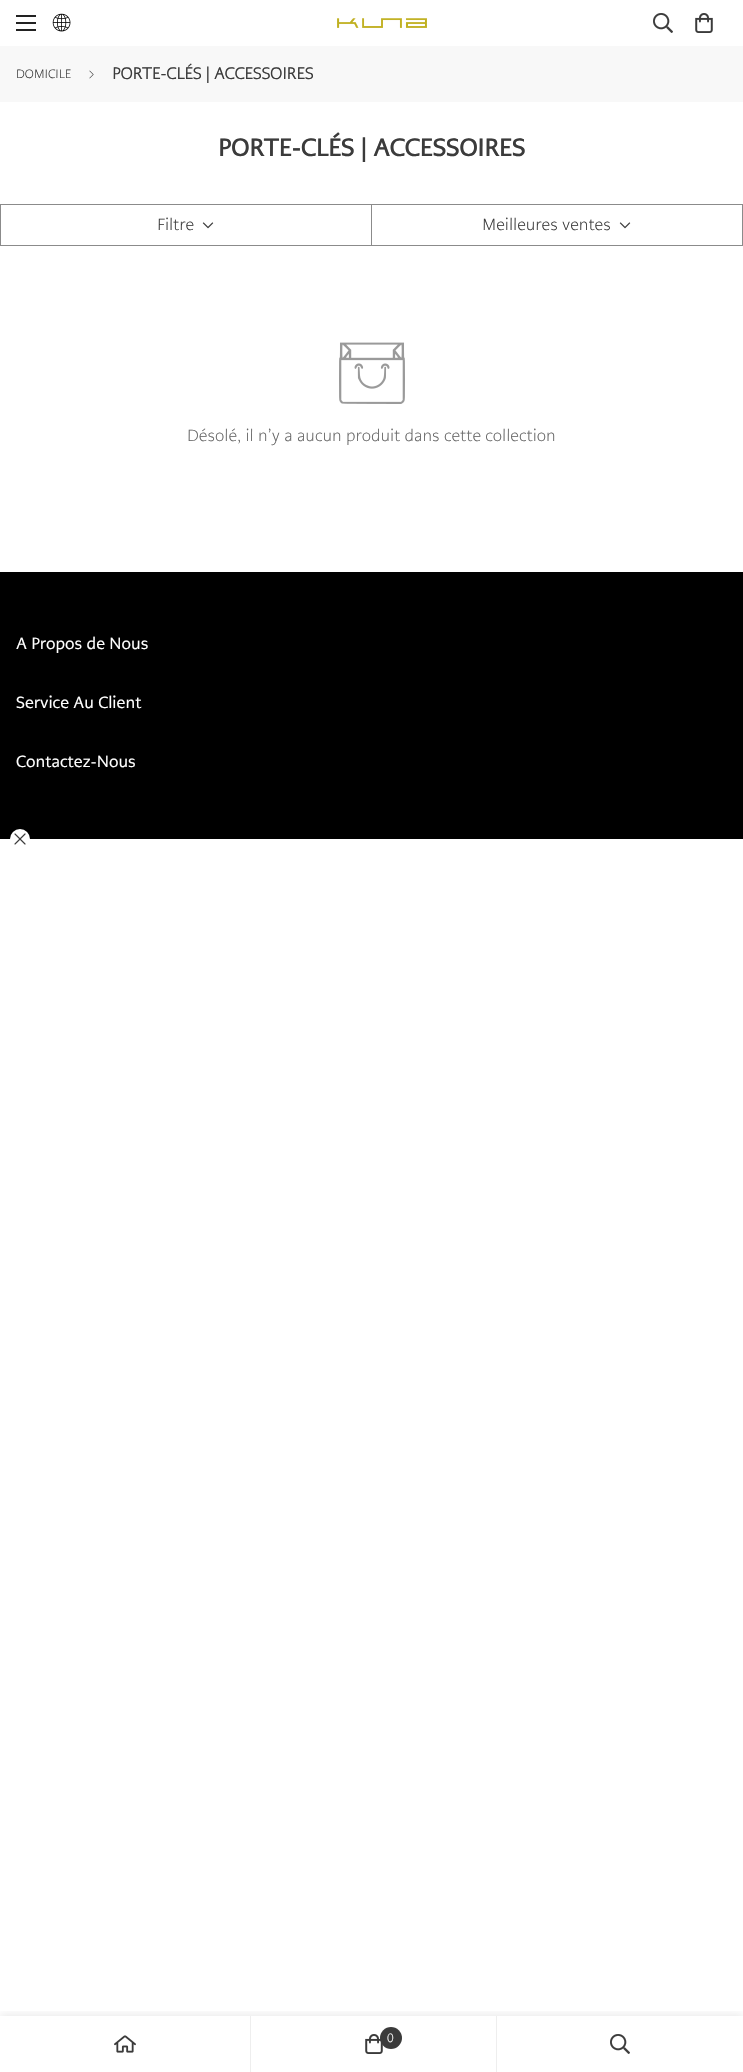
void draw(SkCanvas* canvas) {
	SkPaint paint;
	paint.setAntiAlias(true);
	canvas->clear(0xffffffff);
	paint.setColor(0xff222222);
	canvas->drawRect(SkRect::MakeXYWH(16, 22, 20, 2), paint);
	canvas->drawRect(SkRect::MakeXYWH(16, 15, 20, 2), paint);
	canvas->drawRect(SkRect::MakeXYWH(16, 29, 20, 2), paint);
	canvas->drawImageRect(SkImages::DeferredFromEncodedData(SkData::MakeFromFileName("img1.png")), SkRect::MakeXYWH(52, 13, 19, 19), SkSamplingOptions());
	canvas->drawImageRect(SkImages::DeferredFromEncodedData(SkData::MakeFromFileName("img2.png")), SkRect::MakeXYWH(337, 18, 90, 10), SkSamplingOptions());
	canvas->drawImageRect(SkImages::DeferredFromEncodedData(SkData::MakeFromFileName("img3.png")), SkRect::MakeXYWH(653, 13, 20, 20), SkSamplingOptions());
	canvas->drawImageRect(SkImages::DeferredFromEncodedData(SkData::MakeFromFileName("img4.png")), SkRect::MakeXYWH(695, 13, 18, 20), SkSamplingOptions());
	paint.setColor(0xfff8f8f8);
	canvas->drawRect(SkRect::MakeXYWH(0, 46, 743, 56), paint);
	SkFont f1(fontMgr->matchFamilyStyle("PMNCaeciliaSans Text", SkFontStyle(300, SkFontStyle::kNormal_Width, SkFontStyle::kUpright_Slant)), 12);
	f1.setSubpixel(true);
	paint.setColor(0xff3b3b3b);
	canvas->drawString("DOMICILE", 16, 78, f1, paint);
	canvas->drawImageRect(SkImages::DeferredFromEncodedData(SkData::MakeFromFileName("img5.png")), SkRect::MakeXYWH(89, 70, 5, 9), SkSamplingOptions());
	SkFont f2(fontMgr->matchFamilyStyle("PMNCaeciliaSans Text", SkFontStyle::Bold()), 16);
	f2.setSubpixel(true);
	canvas->drawString("PORTE-CLÉS | ACCESSOIRES", 112, 79, f2, paint);
	SkFont f3(fontMgr->matchFamilyStyle("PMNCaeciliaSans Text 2", SkFontStyle::Bold()), 24);
	f3.setSubpixel(true);
	canvas->drawString("PORTE-CLÉS | ACCESSOIRES", 218, 156, f3, paint);
	paint.setStroke(true);
	paint.setStrokeWidth(1);
	paint.setColor(0xff8b8b8b);
	canvas->drawRect(SkRect::MakeXYWH(0.5, 204.5, 742, 41), paint);
	paint.setStroke(false);
	canvas->drawRect(SkRect::MakeXYWH(371, 205, 1, 40), paint);
	SkFont f4(fontMgr->matchFamilyStyle("PMNCaeciliaSans Text", SkFontStyle(300, SkFontStyle::kNormal_Width, SkFontStyle::kUpright_Slant)), 16);
	f4.setSubpixel(true);
	paint.setColor(0xff3b3b3b);
	canvas->drawString("Filtre", 157, 230, f4, paint);
	canvas->drawImageRect(SkImages::DeferredFromEncodedData(SkData::MakeFromFileName("img6.png")), SkRect::MakeXYWH(202, 222, 12, 7), SkSamplingOptions());
	canvas->drawString("Meilleures ventes", 482, 230, f4, paint);
	canvas->drawImageRect(SkImages::DeferredFromEncodedData(SkData::MakeFromFileName("img6.png")), SkRect::MakeXYWH(619, 222, 12, 7), SkSamplingOptions());
	canvas->drawImageRect(SkImages::DeferredFromEncodedData(SkData::MakeFromFileName("img7.png")), SkRect::MakeXYWH(339, 342, 66, 62), SkSamplingOptions());
	paint.setColor(0xff666666);
	canvas->drawString("Désolé, il n’y a aucun produit dans cette collection", 187, 441, f4, paint);
	paint.setColor(0xff000000);
	canvas->drawRect(SkRect::MakeXYWH(0, 572, 743, 267), paint);
	SkFont f5(fontMgr->matchFamilyStyle("PMNCaeciliaSans Text", SkFontStyle::Normal()), 16);
	f5.setSubpixel(true);
	paint.setColor(0xffffffff);
	canvas->drawString("A Propos de Nous", 16, 649, f5, paint);
	canvas->drawString("Service Au Client", 16, 708, f5, paint);
	canvas->drawString("Contactez-Nous", 16, 767, f5, paint);
	canvas->drawCircle(20, 839, 10, paint);
	canvas->drawImageRect(SkImages::DeferredFromEncodedData(SkData::MakeFromFileName("img8.png")), SkRect::MakeXYWH(14, 833, 12, 12), SkSamplingOptions());
	canvas->save();
	canvas->clipRect(SkRect::MakeXYWH(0, 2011, 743, 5));
	paint.setColor(0x1c000000);
	paint.setMaskFilter(SkMaskFilter::MakeBlur(kNormal_SkBlurStyle, 5));
	canvas->drawRect(SkRect::MakeXYWH(0, 2016, 743, 56), paint);
	paint.setMaskFilter(nullptr);
	canvas->restore();
	paint.setColor(0xffeeeeee);
	canvas->drawRect(SkRect::MakeXYWH(250, 2016, 1, 56), paint);
	canvas->drawImageRect(SkImages::DeferredFromEncodedData(SkData::MakeFromFileName("img9.png")), SkRect::MakeXYWH(114, 2035, 22, 18), SkSamplingOptions());
	canvas->drawRect(SkRect::MakeXYWH(496, 2016, 1, 56), paint);
	canvas->drawImageRect(SkImages::DeferredFromEncodedData(SkData::MakeFromFileName("img4.png")), SkRect::MakeXYWH(365, 2034, 18, 20), SkSamplingOptions());
	paint.setColor(0xff3b3b3b);
	canvas->drawCircle(391, 2038, 11, paint);
	paint.setColor(0xffffffff);
	canvas->drawString("0", 387, 2042, f1, paint);
	canvas->drawImageRect(SkImages::DeferredFromEncodedData(SkData::MakeFromFileName("img3.png")), SkRect::MakeXYWH(610, 2034, 20, 20), SkSamplingOptions());
}
